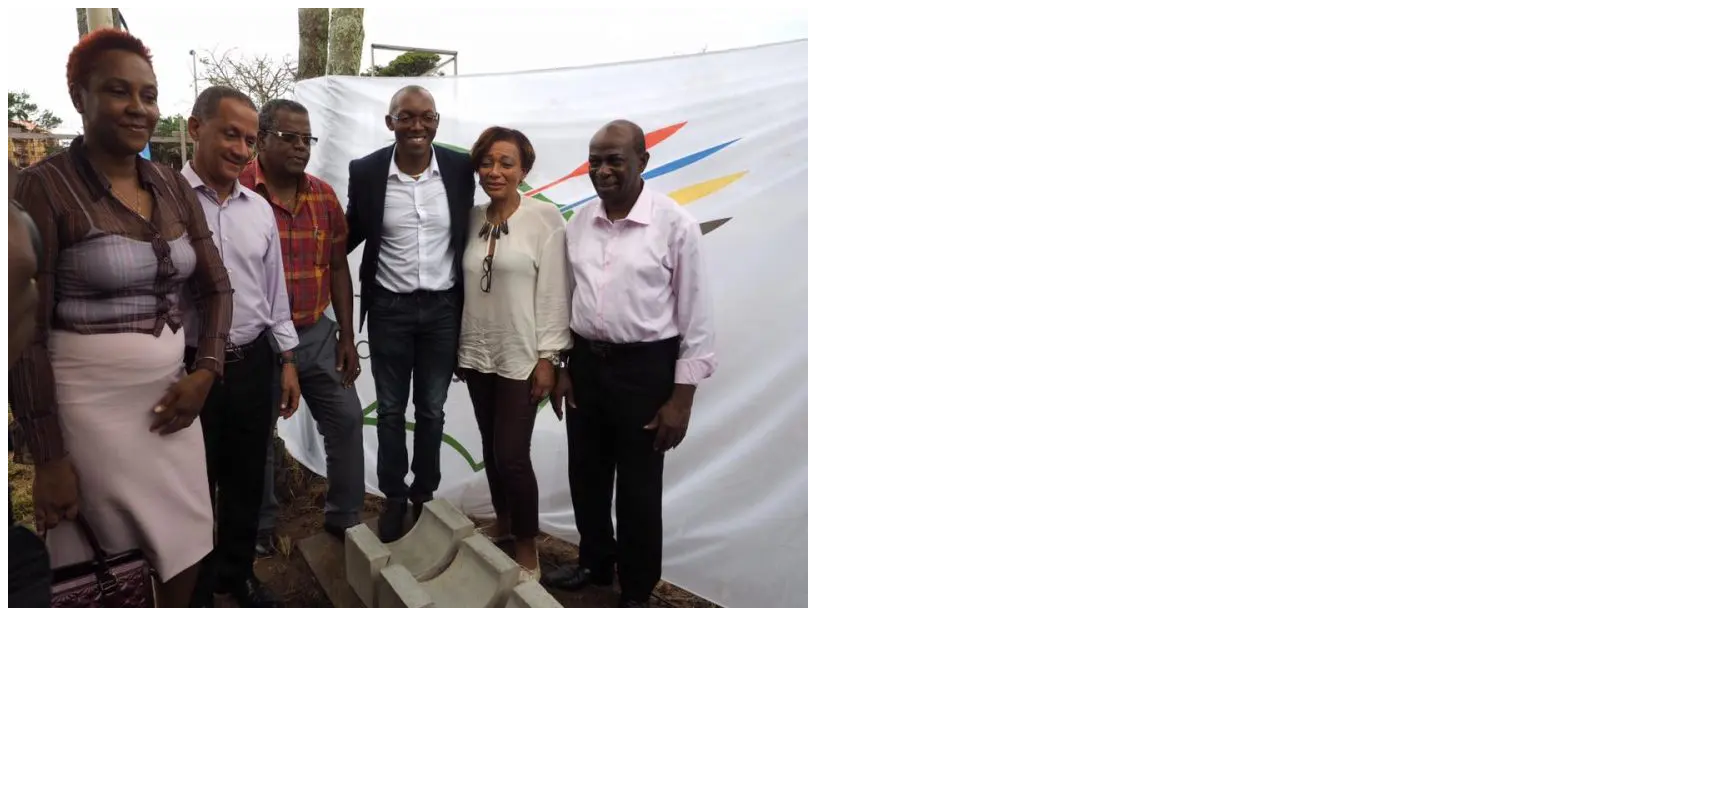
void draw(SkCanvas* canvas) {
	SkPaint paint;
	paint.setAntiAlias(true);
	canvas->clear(0xffffffff);
	canvas->drawImageRect(SkImages::DeferredFromEncodedData(SkData::MakeFromFileName("img1.png")), SkRect::MakeXYWH(8, 8, 800, 600), SkSamplingOptions());
}
